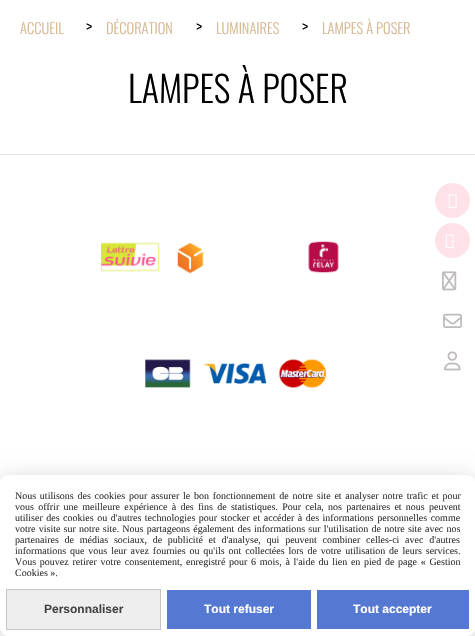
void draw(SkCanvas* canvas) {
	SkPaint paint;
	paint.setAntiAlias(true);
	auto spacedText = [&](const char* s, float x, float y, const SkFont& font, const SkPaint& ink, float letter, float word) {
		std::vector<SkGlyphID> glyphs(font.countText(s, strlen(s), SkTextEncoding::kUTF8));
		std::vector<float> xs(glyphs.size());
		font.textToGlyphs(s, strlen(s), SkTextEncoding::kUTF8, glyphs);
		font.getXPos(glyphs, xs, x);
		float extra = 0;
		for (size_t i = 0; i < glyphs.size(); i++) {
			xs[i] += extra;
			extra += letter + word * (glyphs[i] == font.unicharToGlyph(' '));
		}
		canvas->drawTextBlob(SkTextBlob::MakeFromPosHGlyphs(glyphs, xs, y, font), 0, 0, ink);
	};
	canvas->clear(0xffffffff);
	SkFont f1(fontMgr->matchFamilyStyle("Oswald", SkFontStyle(300, SkFontStyle::kNormal_Width, SkFontStyle::kUpright_Slant)), 14.5);
	f1.setSubpixel(true);
	paint.setColor(0xffd5b791);
	canvas->drawString("ACCUEIL", 20, 34, f1, paint);
	SkFont f2(fontMgr->matchFamilyStyle("Oswald", SkFontStyle(300, SkFontStyle::kNormal_Width, SkFontStyle::kUpright_Slant)), 18);
	f2.setSubpixel(true);
	paint.setColor(0xff000000);
	canvas->drawString(">", 86, 34, f2, paint);
	paint.setColor(0xffd5b791);
	canvas->drawString("DÉCORATION", 106, 34, f1, paint);
	paint.setColor(0xff000000);
	canvas->drawString(">", 196, 34, f2, paint);
	paint.setColor(0xffd5b791);
	canvas->drawString("LUMINAIRES", 216, 34, f1, paint);
	paint.setColor(0xff000000);
	canvas->drawString(">", 302, 34, f2, paint);
	paint.setColor(0xffd5b791);
	canvas->drawString("LAMPES À POSER", 322, 34, f1, paint);
	SkFont f3(fontMgr->matchFamilyStyle("Oswald", SkFontStyle(300, SkFontStyle::kNormal_Width, SkFontStyle::kUpright_Slant)), 36);
	f3.setSubpixel(true);
	paint.setColor(0xff000000);
	canvas->drawString("LAMPES À POSER", 128, 103, f3, paint);
	paint.setColor(0xffe4e4e4);
	canvas->drawRect(SkRect::MakeXYWH(0, 154, 475, 1), paint);
	canvas->drawImageRect(SkImages::DeferredFromEncodedData(SkData::MakeFromFileName("img1.png")), SkRect::MakeXYWH(101, 241, 238, 33), SkSamplingOptions());
	canvas->drawImageRect(SkImages::DeferredFromEncodedData(SkData::MakeFromFileName("img2.png")), SkRect::MakeXYWH(145, 359, 181, 29), SkSamplingOptions());
	paint.setColor(0xfffee2e7);
	canvas->drawCircle(452.5, 200.5, 17.5, paint);
	canvas->drawImageRect(SkImages::DeferredFromEncodedData(SkData::MakeFromFileName("img3.png")), SkRect::MakeXYWH(448, 194, 9, 14), SkSamplingOptions());
	canvas->drawCircle(452.5, 240.5, 17.5, paint);
	canvas->drawImageRect(SkImages::DeferredFromEncodedData(SkData::MakeFromFileName("img3.png")), SkRect::MakeXYWH(445, 234, 9, 14), SkSamplingOptions());
	canvas->drawImageRect(SkImages::DeferredFromEncodedData(SkData::MakeFromFileName("img4.png")), SkRect::MakeXYWH(442, 271, 15, 20), SkSamplingOptions());
	canvas->drawImageRect(SkImages::DeferredFromEncodedData(SkData::MakeFromFileName("img5.png")), SkRect::MakeXYWH(443, 313, 19, 15), SkSamplingOptions());
	canvas->drawImageRect(SkImages::DeferredFromEncodedData(SkData::MakeFromFileName("img6.png")), SkRect::MakeXYWH(444, 351, 17, 20), SkSamplingOptions());
	paint.setColor(0x0d000000);
	paint.setMaskFilter(SkMaskFilter::MakeBlur(kNormal_SkBlurStyle, 3));
	canvas->drawRoundRect(SkRect::MakeXYWH(0, 477, 475, 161), 8, 8, paint);
	paint.setMaskFilter(nullptr);
	paint.setColor(0x26000000);
	paint.setMaskFilter(SkMaskFilter::MakeBlur(kNormal_SkBlurStyle, 12));
	canvas->drawRoundRect(SkRect::MakeXYWH(0, 479, 475, 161), 8, 8, paint);
	paint.setMaskFilter(nullptr);
	paint.setColor(0xffffffff);
	canvas->drawRoundRect(SkRect::MakeXYWH(0, 475, 475, 161), 8, 8, paint);
	SkFont f4(fontMgr->matchFamilyStyle("Liberation Serif", SkFontStyle::Normal()), 10);
	f4.setSubpixel(true);
	paint.setColor(0xff333333);
	spacedText("Nous utilisons des cookies pour assurer le bon fonctionnement de notre site et analyser notre trafic et pour", 15, 499, f4, paint, 0, 1.25);
	spacedText("vous offrir une meilleure expérience à des fins de statistiques. Pour cela, nos partenaires et nous peuvent", 15, 510, f4, paint, 0, 1.75);
	spacedText("utiliser des cookies ou d'autres technologies pour stocker et accéder à des informations personnelles comme", 15, 521, f4, paint, 0, 1);
	spacedText("votre visite sur notre site. Nous partageons également des informations sur l'utilisation de notre site avec nos", 15, 532, f4, paint, 0, 0.7);
	spacedText("partenaires de médias sociaux, de publicité et d'analyse, qui peuvent combiner celles-ci avec d'autres", 15, 543, f4, paint, 0, 3.25);
	spacedText("informations que vous leur avez fournies ou qu'ils ont collectées lors de votre utilisation de leurs services.", 15, 554, f4, paint, 0, 1.4);
	spacedText("Vous pouvez retirer votre consentement, enregistré pour 6 mois, à l'aide du lien en pied de page « Gestion", 15, 565, f4, paint, 0, 1.2);
	canvas->drawString("Cookies ».", 15, 576, f4, paint);
	paint.setColor(0xffeeeeee);
	canvas->drawRect(SkRect::MakeXYWH(6.5, 589.5, 154, 40), paint);
	paint.setStroke(true);
	paint.setStrokeWidth(1);
	paint.setColor(0xffc5c5c5);
	canvas->drawRect(SkRect::MakeXYWH(6.5, 589.5, 154, 40), paint);
	SkFont f5(fontMgr->matchFamilyStyle("Liberation Sans", SkFontStyle::Bold()), 12);
	f5.setSubpixel(true);
	paint.setStroke(false);
	paint.setColor(0xff444444);
	canvas->drawString("Personnaliser", 44, 613, f5, paint);
	paint.setColor(0xff5579d2);
	canvas->drawRect(SkRect::MakeXYWH(167, 590, 144, 39), paint);
	paint.setColor(0xffffffff);
	canvas->drawString("Tout refuser", 204, 613, f5, paint);
	paint.setColor(0xff5579d2);
	canvas->drawRect(SkRect::MakeXYWH(317, 590, 152, 39), paint);
	paint.setColor(0xffffffff);
	canvas->drawString("Tout accepter", 353, 613, f5, paint);
}
